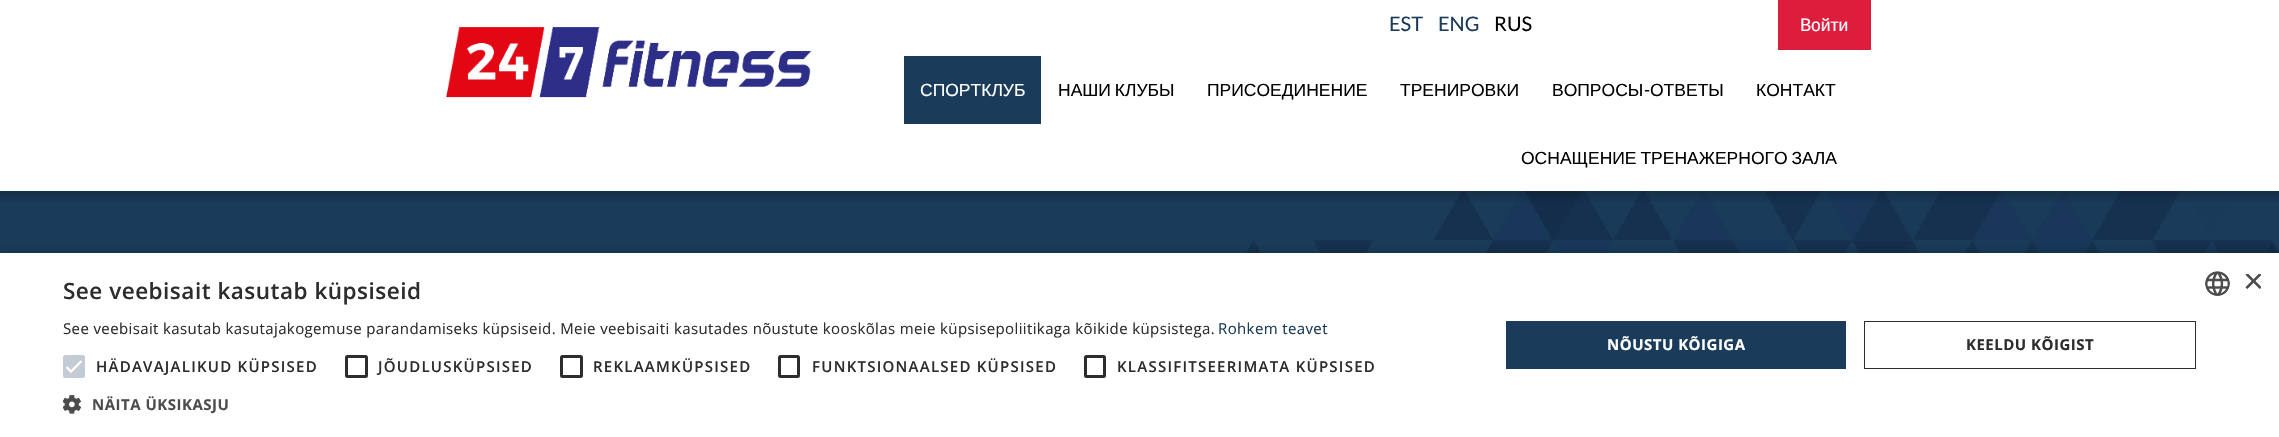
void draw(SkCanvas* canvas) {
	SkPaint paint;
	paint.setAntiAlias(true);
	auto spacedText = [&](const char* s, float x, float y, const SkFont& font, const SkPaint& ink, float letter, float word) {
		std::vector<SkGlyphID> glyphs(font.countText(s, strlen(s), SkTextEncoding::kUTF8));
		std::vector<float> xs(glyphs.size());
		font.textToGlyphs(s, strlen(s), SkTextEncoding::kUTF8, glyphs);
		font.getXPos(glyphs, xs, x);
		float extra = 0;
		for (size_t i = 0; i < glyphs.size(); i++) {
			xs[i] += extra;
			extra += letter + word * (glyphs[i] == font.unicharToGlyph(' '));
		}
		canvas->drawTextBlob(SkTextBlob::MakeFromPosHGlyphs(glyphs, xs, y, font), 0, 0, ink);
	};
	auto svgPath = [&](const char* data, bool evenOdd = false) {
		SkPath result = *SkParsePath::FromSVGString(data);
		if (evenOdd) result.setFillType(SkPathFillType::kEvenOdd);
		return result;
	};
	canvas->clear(0xffffffff);
	canvas->drawImageRect(SkImages::DeferredFromEncodedData(SkData::MakeFromFileName("img1.png")), SkRect::MakeXYWH(446, 27, 366, 71), SkSamplingOptions());
	SkFont f1(fontMgr->matchFamilyStyle("Lato", SkFontStyle::Normal()), 20);
	f1.setSubpixel(true);
	paint.setColor(0xff1a3b59);
	canvas->drawString("EST", 1389, 31, f1, paint);
	canvas->drawString("ENG", 1438, 31, f1, paint);
	paint.setColor(0xff010101);
	canvas->drawString("RUS", 1494, 31, f1, paint);
	paint.setColor(0xffde1d3d);
	canvas->drawRect(SkRect::MakeXYWH(1778, 0, 93, 50), paint);
	SkFont f2(fontMgr->matchFamilyStyle("Lato", SkFontStyle::Normal()), 17.5);
	f2.setSubpixel(true);
	paint.setColor(0xffffffff);
	canvas->drawString("B", 1800, 31, f2, paint);
	SkFont f3(fontMgr->matchFamilyStyle("Liberation Sans", SkFontStyle::Normal()), 17.5);
	f3.setSubpixel(true);
	canvas->drawString("ойти", 1811, 31, f3, paint);
	paint.setColor(0xff1a3b59);
	canvas->drawRect(SkRect::MakeXYWH(904, 56, 137, 68), paint);
	paint.setColor(0xffffffff);
	canvas->drawString("СПОРТКЛУБ", 920, 96, f3, paint);
	paint.setColor(0xff010101);
	spacedText("НАШИ КЛУБЫ", 1058, 96, f3, paint, 0, -1);
	canvas->drawString("ПРИСОЕДИНЕНИЕ", 1207, 96, f3, paint);
	canvas->drawString("ТРЕНИРОВКИ", 1400, 96, f3, paint);
	canvas->drawString("ВОПРОСЫ", 1552, 96, f3, paint);
	canvas->drawString("-", 1644, 96, f2, paint);
	canvas->drawString("ОТВЕТЫ", 1650, 96, f3, paint);
	canvas->drawString("КОНТАКТ", 1756, 96, f3, paint);
	spacedText("ОСНАЩЕНИЕ ТРЕНАЖЕРНОГО ЗАЛА", 1521, 164, f3, paint, 0, -1);
	paint.setColor(0xff1a3b59);
	canvas->drawRect(SkRect::MakeXYWH(0, 191, 2279, 62), paint);
	canvas->drawImageRect(SkImages::DeferredFromEncodedData(SkData::MakeFromFileName("img2.png")), SkRect::MakeXYWH(1224, 191, 1055, 62), SkSamplingOptions());
	{
		const SkColor colors[] = {0x33000000, 0x00000000};
		const float stops[] = {0, 1};
		const SkPoint ends[] = {{1140, 191}, {1140, 204}};
		paint.setShader(SkGradientShader::MakeLinear(ends, colors, stops, 2, SkTileMode::kClamp));
		paint.setAlpha(255);
	}
	canvas->drawRect(SkRect::MakeXYWH(0, 191, 2279, 11), paint);
	paint.setShader(nullptr);
	paint.setColor(0x59000000);
	paint.setMaskFilter(SkMaskFilter::MakeBlur(kNormal_SkBlurStyle, 5));
	canvas->drawRect(SkRect::MakeXYWH(1, 255, 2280, 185), paint);
	paint.setMaskFilter(nullptr);
	paint.setColor(0xffffffff);
	canvas->drawRect(SkRect::MakeXYWH(0, 253, 2279, 184), paint);
	SkFont f4(fontMgr->matchFamilyStyle("Open Sans", SkFontStyle(600, SkFontStyle::kNormal_Width, SkFontStyle::kUpright_Slant)), 22.5);
	f4.setSubpixel(true);
	paint.setColor(0xff2d2d2d);
	spacedText("See veebisait kasutab küpsiseid", 63, 299, f4, paint, 0.5, 0);
	SkFont f5(fontMgr->matchFamilyStyle("Open Sans", SkFontStyle::Normal()), 15);
	f5.setSubpixel(true);
	spacedText("See veebisait kasutab kasutajakogemuse parandamiseks küpsiseid. Meie veebisaiti kasutades nõustute kooskõlas meie küpsisepoliitikaga kõikide küpsistega.", 63, 334, f5, paint, 0.38, 0);
	paint.setColor(0xff1a3b59);
	spacedText("Rohkem teavet", 1218, 334, f5, paint, 0.38, 0);
	paint.setColor(0xffc3ccd4);
	canvas->drawRoundRect(SkRect::MakeXYWH(63, 355, 22, 23), 2.5, 2.5, paint);
	paint.setStroke(true);
	paint.setStrokeWidth(2.3);
	paint.setColor(0xffffffff);
	canvas->drawPath(svgPath("M66.5 367L71 371.5L81.5 361"), paint);
	SkFont f6(fontMgr->matchFamilyStyle("Open Sans", SkFontStyle(600, SkFontStyle::kNormal_Width, SkFontStyle::kUpright_Slant)), 15);
	f6.setSubpixel(true);
	paint.setStroke(false);
	paint.setColor(0xff2d2d2d);
	spacedText("HÄDAVAJALIKUD KÜPSISED", 96, 372, f6, paint, 1.25, 0);
	paint.setStroke(true);
	paint.setStrokeWidth(3);
	canvas->drawRoundRect(SkRect::MakeXYWH(346.5, 356.5, 20, 20), 1, 1, paint);
	paint.setStroke(false);
	spacedText("JÕUDLUSKÜPSISED", 378, 372, f6, paint, 1.25, 0);
	paint.setStroke(true);
	canvas->drawRoundRect(SkRect::MakeXYWH(561.5, 356.5, 20, 20), 1, 1, paint);
	paint.setStroke(false);
	spacedText("REKLAAMKÜPSISED", 593, 372, f6, paint, 1.25, 0);
	paint.setStroke(true);
	canvas->drawRoundRect(SkRect::MakeXYWH(779.5, 356.5, 19, 20), 1, 1, paint);
	paint.setStroke(false);
	spacedText("FUNKTSIONAALSED KÜPSISED", 812, 372, f6, paint, 1.25, 0);
	paint.setStroke(true);
	canvas->drawRoundRect(SkRect::MakeXYWH(1085.5, 356.5, 19, 20), 1, 1, paint);
	paint.setStroke(false);
	spacedText("KLASSIFITSEERIMATA KÜPSISED", 1117, 372, f6, paint, 1.25, 0);
	canvas->drawImageRect(SkImages::DeferredFromEncodedData(SkData::MakeFromFileName("img3.png")), SkRect::MakeXYWH(63, 395, 18, 19), SkSamplingOptions());
	SkFont f7(fontMgr->matchFamilyStyle("Open Sans", SkFontStyle::Bold()), 15);
	f7.setSubpixel(true);
	paint.setColor(0xff4d4d4d);
	spacedText("NÄITA ÜKSIKASJU", 92, 410, f7, paint, 0.5, 0);
	paint.setColor(0xff1a3b59);
	canvas->drawRect(SkRect::MakeXYWH(1506, 321, 340, 48), paint);
	paint.setColor(0xffffffff);
	spacedText("NÕUSTU KÕIGIGA", 1607, 350, f7, paint, 0.5, 0);
	paint.setStroke(true);
	paint.setStrokeWidth(1);
	paint.setColor(0xff2d2d2d);
	canvas->drawRect(SkRect::MakeXYWH(1864.5, 321.5, 331, 47), paint);
	paint.setStroke(false);
	spacedText("KEELDU KÕIGIST", 1966, 350, f7, paint, 0.5, 0);
	canvas->drawImageRect(SkImages::DeferredFromEncodedData(SkData::MakeFromFileName("img4.png")), SkRect::MakeXYWH(2205, 271, 25, 25), SkSamplingOptions());
	canvas->save();
	canvas->clipRect(SkRect::MakeXYWH(2243, 274, 18, 19));
	SkFont f8(fontMgr->matchFamilyStyle("Liberation Sans", SkFontStyle::Normal()), 36);
	f8.setSubpixel(true);
	paint.setColor(0xff4d4d4d);
	canvas->drawString("×", 2243, 293, f8, paint);
	canvas->restore();
}
